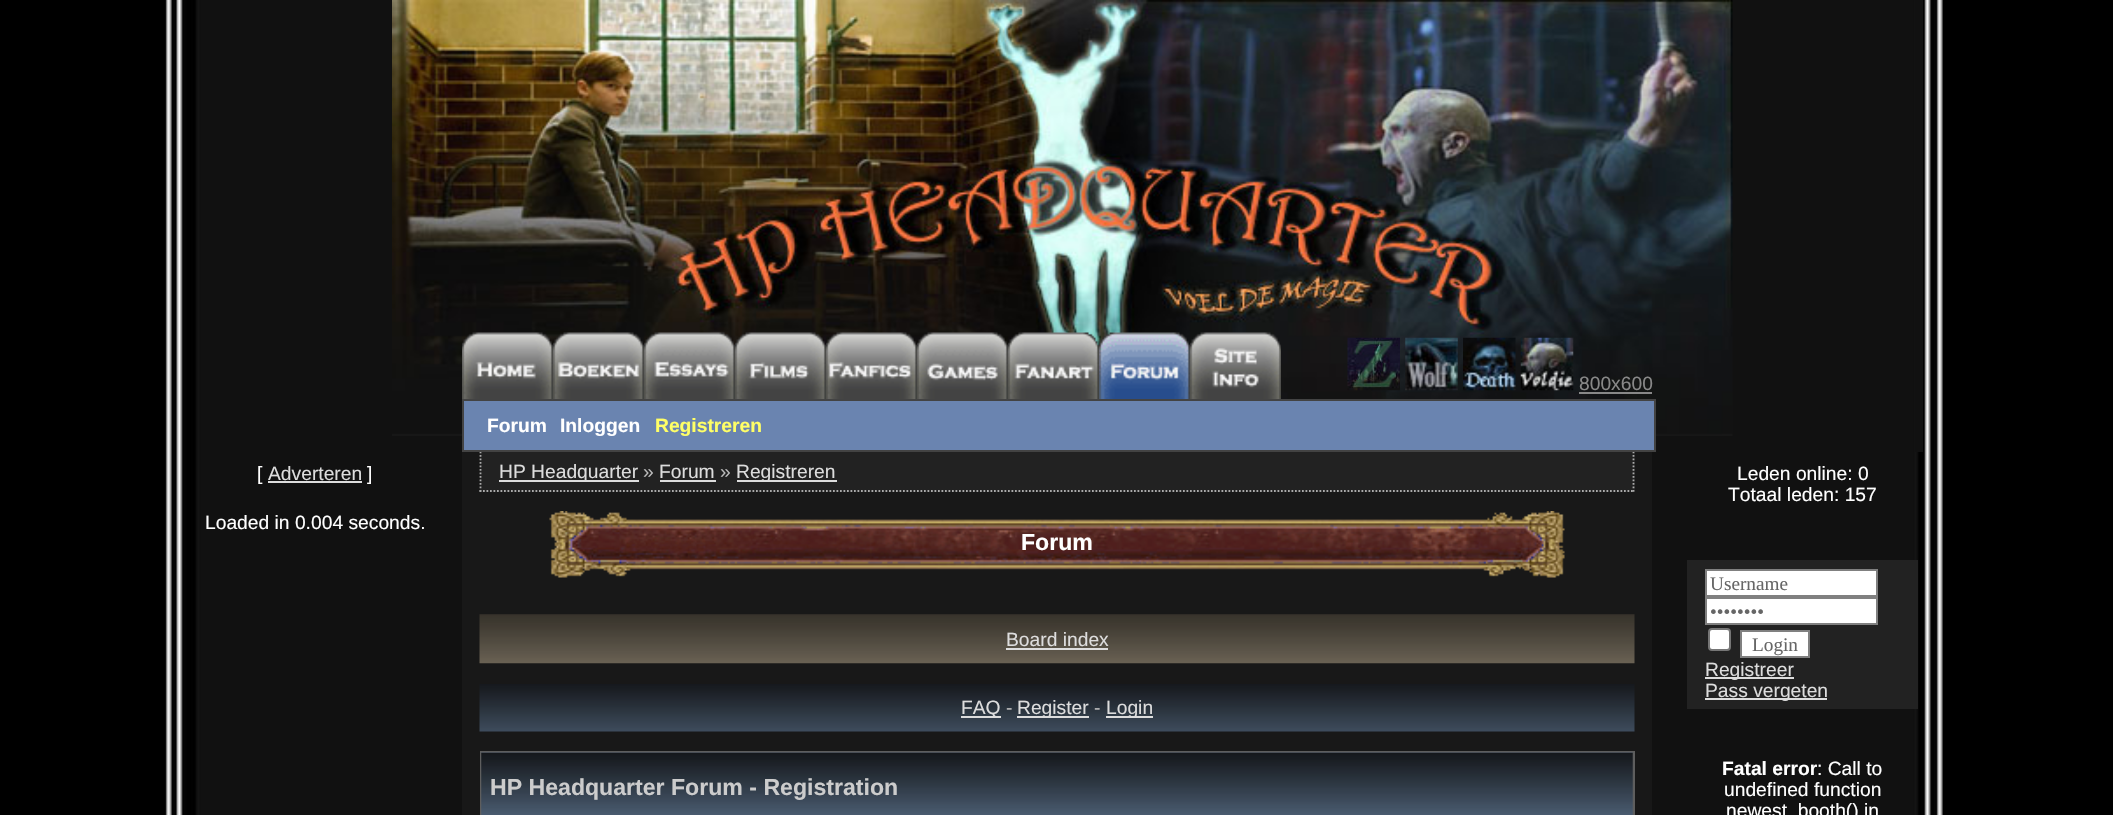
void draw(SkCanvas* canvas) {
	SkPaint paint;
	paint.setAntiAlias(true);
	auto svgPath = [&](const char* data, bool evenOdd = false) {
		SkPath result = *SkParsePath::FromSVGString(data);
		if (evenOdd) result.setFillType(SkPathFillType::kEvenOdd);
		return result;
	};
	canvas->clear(0xff000000);
	canvas->drawImageRect(SkImages::DeferredFromEncodedData(SkData::MakeFromFileName("img1.png")), SkRect::MakeXYWH(165, 0, 1778, 815), SkSamplingOptions());
	paint.setColor(0xff111111);
	canvas->drawRect(SkRect::MakeXYWH(1915, 0, 8, 452), paint);
	canvas->drawImageRect(SkImages::DeferredFromEncodedData(SkData::MakeFromFileName("img2.png")), SkRect::MakeXYWH(392, 0, 1341, 436), SkSamplingOptions());
	canvas->drawImageRect(SkImages::DeferredFromEncodedData(SkData::MakeFromFileName("img3.png")), SkRect::MakeXYWH(1347, 337, 53, 54), SkSamplingOptions());
	canvas->drawImageRect(SkImages::DeferredFromEncodedData(SkData::MakeFromFileName("img4.png")), SkRect::MakeXYWH(1405, 337, 53, 54), SkSamplingOptions());
	canvas->drawImageRect(SkImages::DeferredFromEncodedData(SkData::MakeFromFileName("img5.png")), SkRect::MakeXYWH(1463, 337, 53, 54), SkSamplingOptions());
	canvas->drawImageRect(SkImages::DeferredFromEncodedData(SkData::MakeFromFileName("img6.png")), SkRect::MakeXYWH(1520, 337, 54, 54), SkSamplingOptions());
	SkFont f1(fontMgr->matchFamilyStyle("Liberation Sans", SkFontStyle::Normal()), 19.25);
	f1.setSubpixel(true);
	paint.setColor(0xff888888);
	canvas->drawString("800x600", 1579, 390, f1, paint);
	canvas->drawRect(SkRect::MakeXYWH(1579, 392, 73, 2), paint);
	canvas->drawImageRect(SkImages::DeferredFromEncodedData(SkData::MakeFromFileName("img7.png")), SkRect::MakeXYWH(462, 332, 91, 67), SkSamplingOptions());
	canvas->drawImageRect(SkImages::DeferredFromEncodedData(SkData::MakeFromFileName("img8.png")), SkRect::MakeXYWH(553, 332, 91, 67), SkSamplingOptions());
	canvas->drawImageRect(SkImages::DeferredFromEncodedData(SkData::MakeFromFileName("img9.png")), SkRect::MakeXYWH(644, 332, 91, 67), SkSamplingOptions());
	canvas->drawImageRect(SkImages::DeferredFromEncodedData(SkData::MakeFromFileName("img10.png")), SkRect::MakeXYWH(735, 332, 91, 67), SkSamplingOptions());
	canvas->drawImageRect(SkImages::DeferredFromEncodedData(SkData::MakeFromFileName("img11.png")), SkRect::MakeXYWH(826, 332, 91, 67), SkSamplingOptions());
	canvas->drawImageRect(SkImages::DeferredFromEncodedData(SkData::MakeFromFileName("img12.png")), SkRect::MakeXYWH(917, 332, 91, 67), SkSamplingOptions());
	canvas->drawImageRect(SkImages::DeferredFromEncodedData(SkData::MakeFromFileName("img13.png")), SkRect::MakeXYWH(1008, 332, 91, 67), SkSamplingOptions());
	canvas->drawImageRect(SkImages::DeferredFromEncodedData(SkData::MakeFromFileName("img14.png")), SkRect::MakeXYWH(1190, 332, 91, 67), SkSamplingOptions());
	canvas->drawImageRect(SkImages::DeferredFromEncodedData(SkData::MakeFromFileName("img15.png")), SkRect::MakeXYWH(1099, 332, 91, 67), SkSamplingOptions());
	paint.setColor(0xff181818);
	canvas->drawRect(SkRect::MakeXYWH(462, 452, 1190, 363), paint);
	paint.setColor(0xff222222);
	canvas->drawRect(SkRect::MakeXYWH(480, 452, 1155, 40), paint);
	paint.setStroke(true);
	paint.setStrokeWidth(1.8);
	paint.setColor(0xffaaaaaa);
	paint.setPathEffect(SkDashPathEffect::Make({{1.75f, 1.75f}}, 0));
	canvas->drawPath(svgPath("M1633.5 451.5V492"), paint);
	paint.setPathEffect(nullptr);
	paint.setPathEffect(SkDashPathEffect::Make({{1.75f, 1.75f}}, 0));
	canvas->drawPath(svgPath("M479.5 491H1634.5"), paint);
	paint.setPathEffect(nullptr);
	paint.setPathEffect(SkDashPathEffect::Make({{1.75f, 1.75f}}, 0));
	canvas->drawPath(svgPath("M480.5 451.5V492"), paint);
	paint.setPathEffect(nullptr);
	paint.setStroke(false);
	paint.setColor(0xff6a84b0);
	canvas->drawRect(SkRect::MakeXYWH(463, 400, 1192, 51), paint);
	paint.setStroke(true);
	paint.setStrokeWidth(2);
	paint.setColor(0xff434343);
	canvas->drawRect(SkRect::MakeXYWH(463, 400, 1192, 51), paint);
	SkFont f2(fontMgr->matchFamilyStyle("Liberation Sans", SkFontStyle::Bold()), 19.25);
	f2.setSubpixel(true);
	paint.setStroke(false);
	paint.setColor(0xffffffff);
	canvas->drawString("Forum", 487, 432, f2, paint);
	canvas->drawString("Inloggen", 560, 432, f2, paint);
	paint.setColor(0xffffff66);
	canvas->drawString("Registreren", 655, 432, f2, paint);
	paint.setColor(0xffffffff);
	canvas->drawString("[", 257, 480, f1, paint);
	paint.setColor(0xffdddddd);
	canvas->drawString("Adverteren", 268, 480, f1, paint);
	canvas->drawRect(SkRect::MakeXYWH(268, 481, 94, 2), paint);
	paint.setColor(0xffffffff);
	canvas->drawString("]", 367, 480, f1, paint);
	canvas->drawString("Loaded in 0.004 seconds.", 205, 529, f1, paint);
	paint.setColor(0xffdddddd);
	canvas->drawRect(SkRect::MakeXYWH(499, 480, 140, 2), paint);
	canvas->drawString("HP Headquarter", 499, 478, f1, paint);
	paint.setColor(0xffbbbbbb);
	canvas->drawString("»", 643, 478, f1, paint);
	paint.setColor(0xffdddddd);
	canvas->drawString("Forum", 659, 478, f1, paint);
	canvas->drawRect(SkRect::MakeXYWH(660, 480, 56, 2), paint);
	paint.setColor(0xffbbbbbb);
	canvas->drawString("»", 720, 478, f1, paint);
	paint.setColor(0xffdddddd);
	canvas->drawRect(SkRect::MakeXYWH(737, 480, 100, 2), paint);
	canvas->drawString("Registreren", 736, 478, f1, paint);
	canvas->drawImageRect(SkImages::DeferredFromEncodedData(SkData::MakeFromFileName("img16.png")), SkRect::MakeXYWH(549, 511, 1016, 67), SkSamplingOptions());
	SkFont f3(fontMgr->matchFamilyStyle("Liberation Sans", SkFontStyle::Bold()), 23.1);
	f3.setSubpixel(true);
	paint.setColor(0xffffffff);
	canvas->drawString("Forum", 1021, 550, f3, paint);
	canvas->drawImageRect(SkImages::DeferredFromEncodedData(SkData::MakeFromFileName("img17.png")), SkRect::MakeXYWH(479, 614, 1156, 50), SkSamplingOptions());
	paint.setColor(0xffdddddd);
	canvas->drawString("Board index", 1006, 646, f1, paint);
	canvas->drawRect(SkRect::MakeXYWH(1006, 648, 102, 2), paint);
	canvas->drawImageRect(SkImages::DeferredFromEncodedData(SkData::MakeFromFileName("img18.png")), SkRect::MakeXYWH(479, 684, 1156, 48), SkSamplingOptions());
	canvas->drawRect(SkRect::MakeXYWH(961, 716, 40, 2), paint);
	canvas->drawString("FAQ", 961, 714, f1, paint);
	paint.setColor(0xffbbbbbb);
	canvas->drawString("-", 1006, 714, f1, paint);
	paint.setColor(0xffdddddd);
	canvas->drawRect(SkRect::MakeXYWH(1017, 716, 72, 2), paint);
	canvas->drawString("Register", 1017, 714, f1, paint);
	paint.setColor(0xffbbbbbb);
	canvas->drawString("-", 1094, 714, f1, paint);
	paint.setColor(0xffdddddd);
	canvas->drawRect(SkRect::MakeXYWH(1106, 716, 47, 2), paint);
	canvas->drawString("Login", 1106, 714, f1, paint);
	paint.setColor(0xff5e5e5e);
	canvas->drawRect(SkRect::MakeXYWH(480, 751, 1155, 64), paint);
	canvas->drawImageRect(SkImages::DeferredFromEncodedData(SkData::MakeFromFileName("img19.png")), SkRect::MakeXYWH(481, 752, 1152, 63), SkSamplingOptions());
	paint.setColor(0xffcccccc);
	canvas->drawString("HP Headquarter Forum - Registration", 490, 795, f3, paint);
	paint.setColor(0xffffffff);
	canvas->drawString("Leden online: 0", 1737, 480, f1, paint);
	canvas->drawString("Totaal leden: 157", 1728, 501, f1, paint);
	paint.setColor(0xff222222);
	canvas->drawRect(SkRect::MakeXYWH(1687, 560, 231, 149), paint);
	paint.setColor(0xffffffff);
	canvas->drawRect(SkRect::MakeXYWH(1706, 570, 171, 26), paint);
	paint.setStroke(true);
	paint.setColor(0xff808080);
	canvas->drawRect(SkRect::MakeXYWH(1706, 570, 171, 26), paint);
	SkFont f4(fontMgr->matchFamilyStyle("Liberation Serif", SkFontStyle::Normal()), 19.25);
	f4.setSubpixel(true);
	paint.setStroke(false);
	paint.setColor(0xff666666);
	canvas->drawString("Username", 1710, 590, f4, paint);
	paint.setColor(0xffffffff);
	canvas->drawRect(SkRect::MakeXYWH(1706, 598, 171, 26), paint);
	paint.setStroke(true);
	paint.setColor(0xff808080);
	canvas->drawRect(SkRect::MakeXYWH(1706, 598, 171, 26), paint);
	paint.setStroke(false);
	paint.setColor(0xff666666);
	canvas->drawString("••••••••", 1710, 618, f4, paint);
	paint.setColor(0xffffffff);
	canvas->drawRoundRect(SkRect::MakeXYWH(1709, 629, 21, 21), 3, 3, paint);
	paint.setStroke(true);
	paint.setColor(0xff767676);
	canvas->drawRoundRect(SkRect::MakeXYWH(1709, 629, 21, 21), 3, 3, paint);
	paint.setStroke(false);
	paint.setColor(0xffffffff);
	canvas->drawRect(SkRect::MakeXYWH(1741, 631, 68, 26), paint);
	paint.setStroke(true);
	paint.setColor(0xff808080);
	canvas->drawRect(SkRect::MakeXYWH(1741, 631, 68, 26), paint);
	paint.setStroke(false);
	paint.setColor(0xff666666);
	canvas->drawString("Login", 1752, 651, f4, paint);
	paint.setColor(0xffdddddd);
	canvas->drawRect(SkRect::MakeXYWH(1705, 677, 89, 2), paint);
	canvas->drawString("Registreer", 1705, 676, f1, paint);
	canvas->drawRect(SkRect::MakeXYWH(1705, 698, 122, 2), paint);
	canvas->drawString("Pass vergeten", 1705, 697, f1, paint);
	paint.setColor(0xffffffff);
	canvas->drawString("Fatal error", 1722, 775, f2, paint);
	canvas->drawString(": Call to", 1817, 775, f1, paint);
	canvas->drawString("undefined function", 1724, 796, f1, paint);
	canvas->drawString("newest_booth() in", 1726, 817, f1, paint);
}
